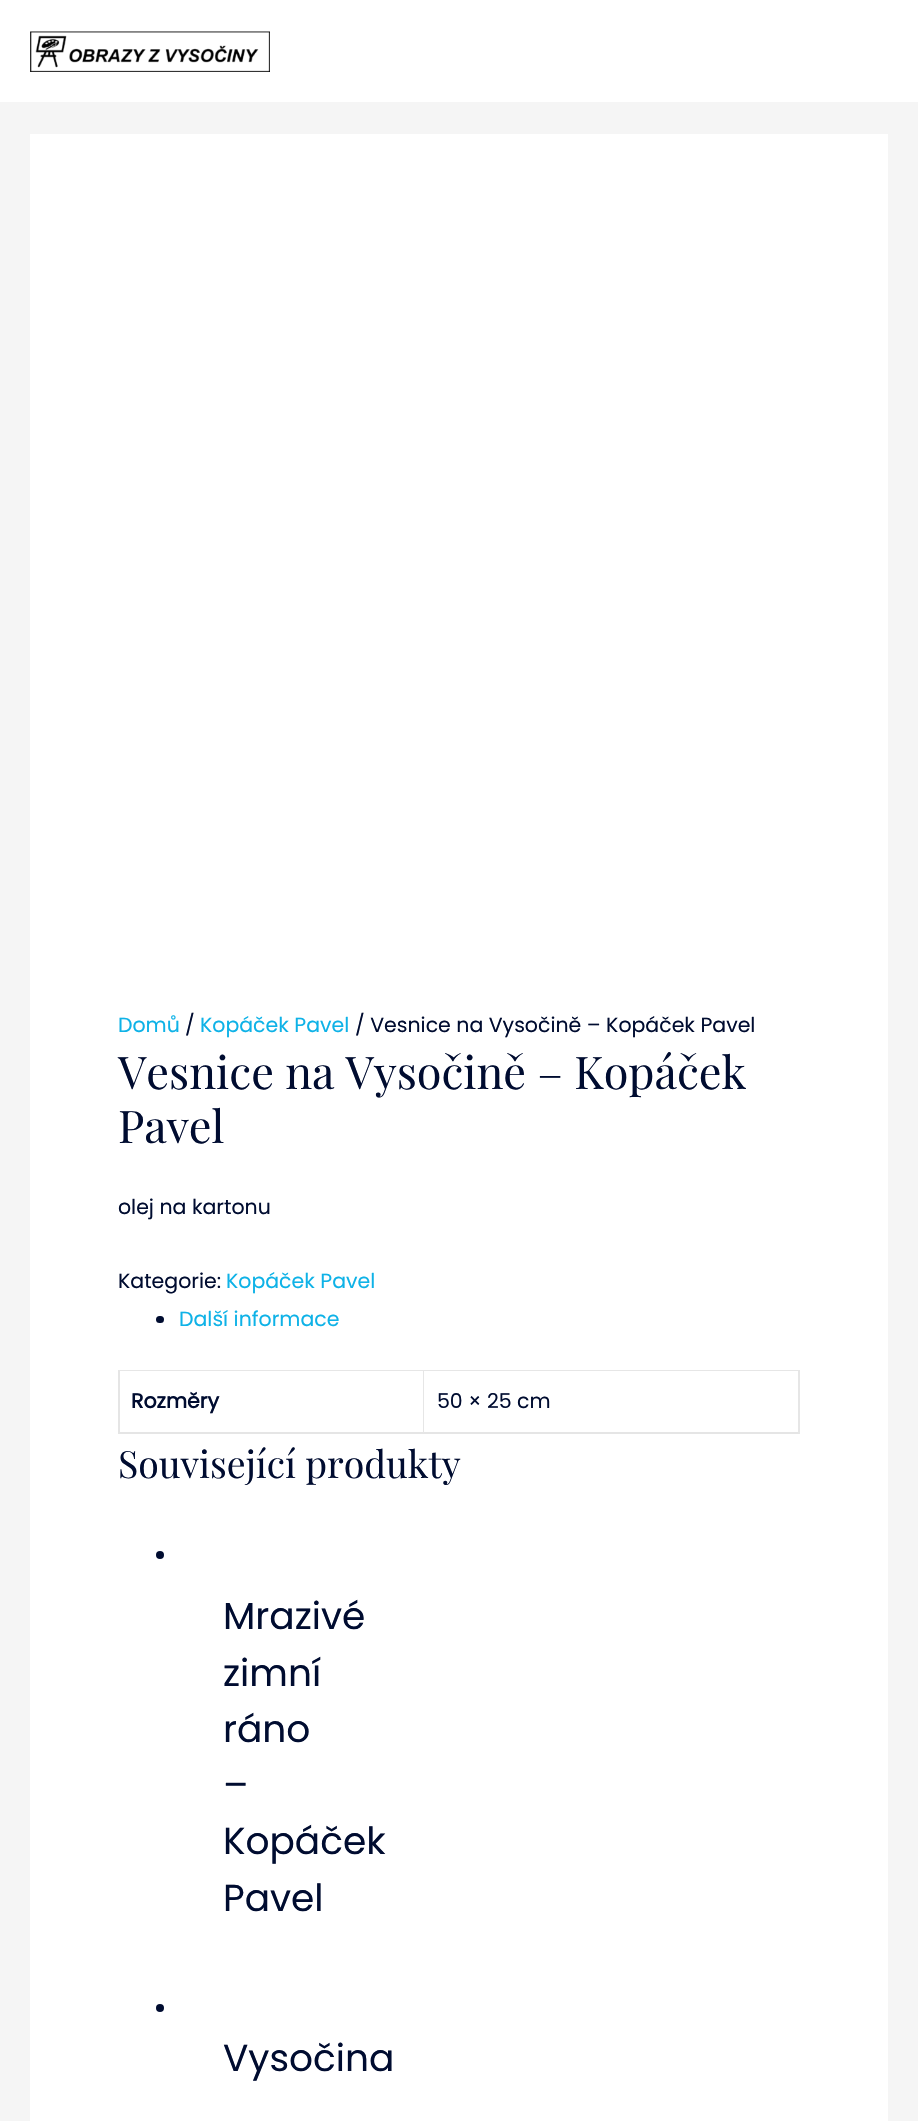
void draw(SkCanvas* canvas) {
	SkPaint paint;
	paint.setAntiAlias(true);
	auto svgPath = [&](const char* data, bool evenOdd = false) {
		SkPath result = *SkParsePath::FromSVGString(data);
		if (evenOdd) result.setFillType(SkPathFillType::kEvenOdd);
		return result;
	};
	canvas->clear(0xfff5f5f5);
	paint.setColor(0xffffffff);
	canvas->drawRect(SkRect::MakeXYWH(0, 0, 918, 102), paint);
	canvas->drawImageRect(SkImages::DeferredFromEncodedData(SkData::MakeFromFileName("img1.png")), SkRect::MakeXYWH(30, 31, 240, 41), SkSamplingOptions());
	canvas->drawRect(SkRect::MakeXYWH(30, 134, 858, 1987), paint);
	SkFont f1(fontMgr->matchFamilyStyle("Poppins", SkFontStyle::Normal()), 20.5);
	f1.setSubpixel(true);
	paint.setColor(0xff0eb2e7);
	canvas->drawString("Domů", 118, 1032, f1, paint);
	paint.setColor(0xff000c30);
	canvas->drawString("/", 185, 1032, f1, paint);
	paint.setColor(0xff0eb2e7);
	canvas->drawString("Kopáček Pavel", 200, 1032, f1, paint);
	paint.setColor(0xff000c30);
	canvas->drawString("/ Vesnice na Vysočině – Kopáček Pavel", 355, 1032, f1, paint);
	SkFont f2(fontMgr->matchFamilyStyle("Playfair Display", SkFontStyle::Normal()), 45);
	f2.setSubpixel(true);
	canvas->drawString("Vesnice na Vysočině – Kopáček", 118, 1089, f2, paint);
	canvas->drawString("Pavel", 118, 1143, f2, paint);
	canvas->drawString("olej na kartonu", 118, 1214, f1, paint);
	canvas->drawString("Kategorie:", 118, 1288, f1, paint);
	paint.setColor(0xff0eb2e7);
	canvas->drawString("Kopáček Pavel", 226, 1288, f1, paint);
	paint.setColor(0xff000c30);
	canvas->drawRoundRect(SkRect::MakeXYWH(156, 1316, 8, 7), 3.5, 3.5, paint);
	paint.setColor(0xff0eb2e7);
	canvas->drawString("Další informace", 179, 1326, f1, paint);
	paint.setColor(0xffe6e6e6);
	canvas->drawPath(svgPath("M118 1370H800V1371H120Z"), paint);
	paint.setColor(0x1a000000);
	canvas->drawPath(svgPath("M118 1434V1370L120 1371V1434Z"), paint);
	paint.setColor(0xffe6e6e6);
	canvas->drawPath(svgPath("M424 1371V1434L423 1432V1371Z"), paint);
	paint.setColor(0x1a000000);
	canvas->drawPath(svgPath("M424 1434H120V1432H423Z"), paint);
	SkFont f3(fontMgr->matchFamilyStyle("Poppins", SkFontStyle::Bold()), 20.5);
	f3.setSubpixel(true);
	paint.setColor(0xff000c30);
	canvas->drawString("Rozměry", 131, 1408, f3, paint);
	paint.setColor(0xffe6e6e6);
	canvas->drawPath(svgPath("M800 1371V1434L798 1432V1371Z"), paint);
	paint.setColor(0x1a000000);
	canvas->drawPath(svgPath("M800 1434H424V1432H798Z"), paint);
	paint.setColor(0xff000c30);
	canvas->drawString("50 × 25 cm", 437, 1408, f1, paint);
	SkFont f4(fontMgr->matchFamilyStyle("Playfair Display", SkFontStyle::Normal()), 37.5);
	f4.setSubpixel(true);
	canvas->drawString("Související produkty", 118, 1478, f4, paint);
	canvas->drawCircle(160, 1555, 4, paint);
	SkFont f5(fontMgr->matchFamilyStyle("Poppins", SkFontStyle::Normal()), 37.5);
	f5.setSubpixel(true);
	canvas->drawString("Mrazivé", 223, 1629, f5, paint);
	canvas->drawString("zimní", 223, 1686, f5, paint);
	canvas->drawString("ráno", 223, 1742, f5, paint);
	canvas->drawString("–", 223, 1798, f5, paint);
	canvas->drawString("Kopáček", 223, 1854, f5, paint);
	canvas->drawString("Pavel", 223, 1911, f5, paint);
	canvas->drawCircle(160, 2008, 4, paint);
	canvas->drawString("Vysočina", 223, 2071, f5, paint);
}
